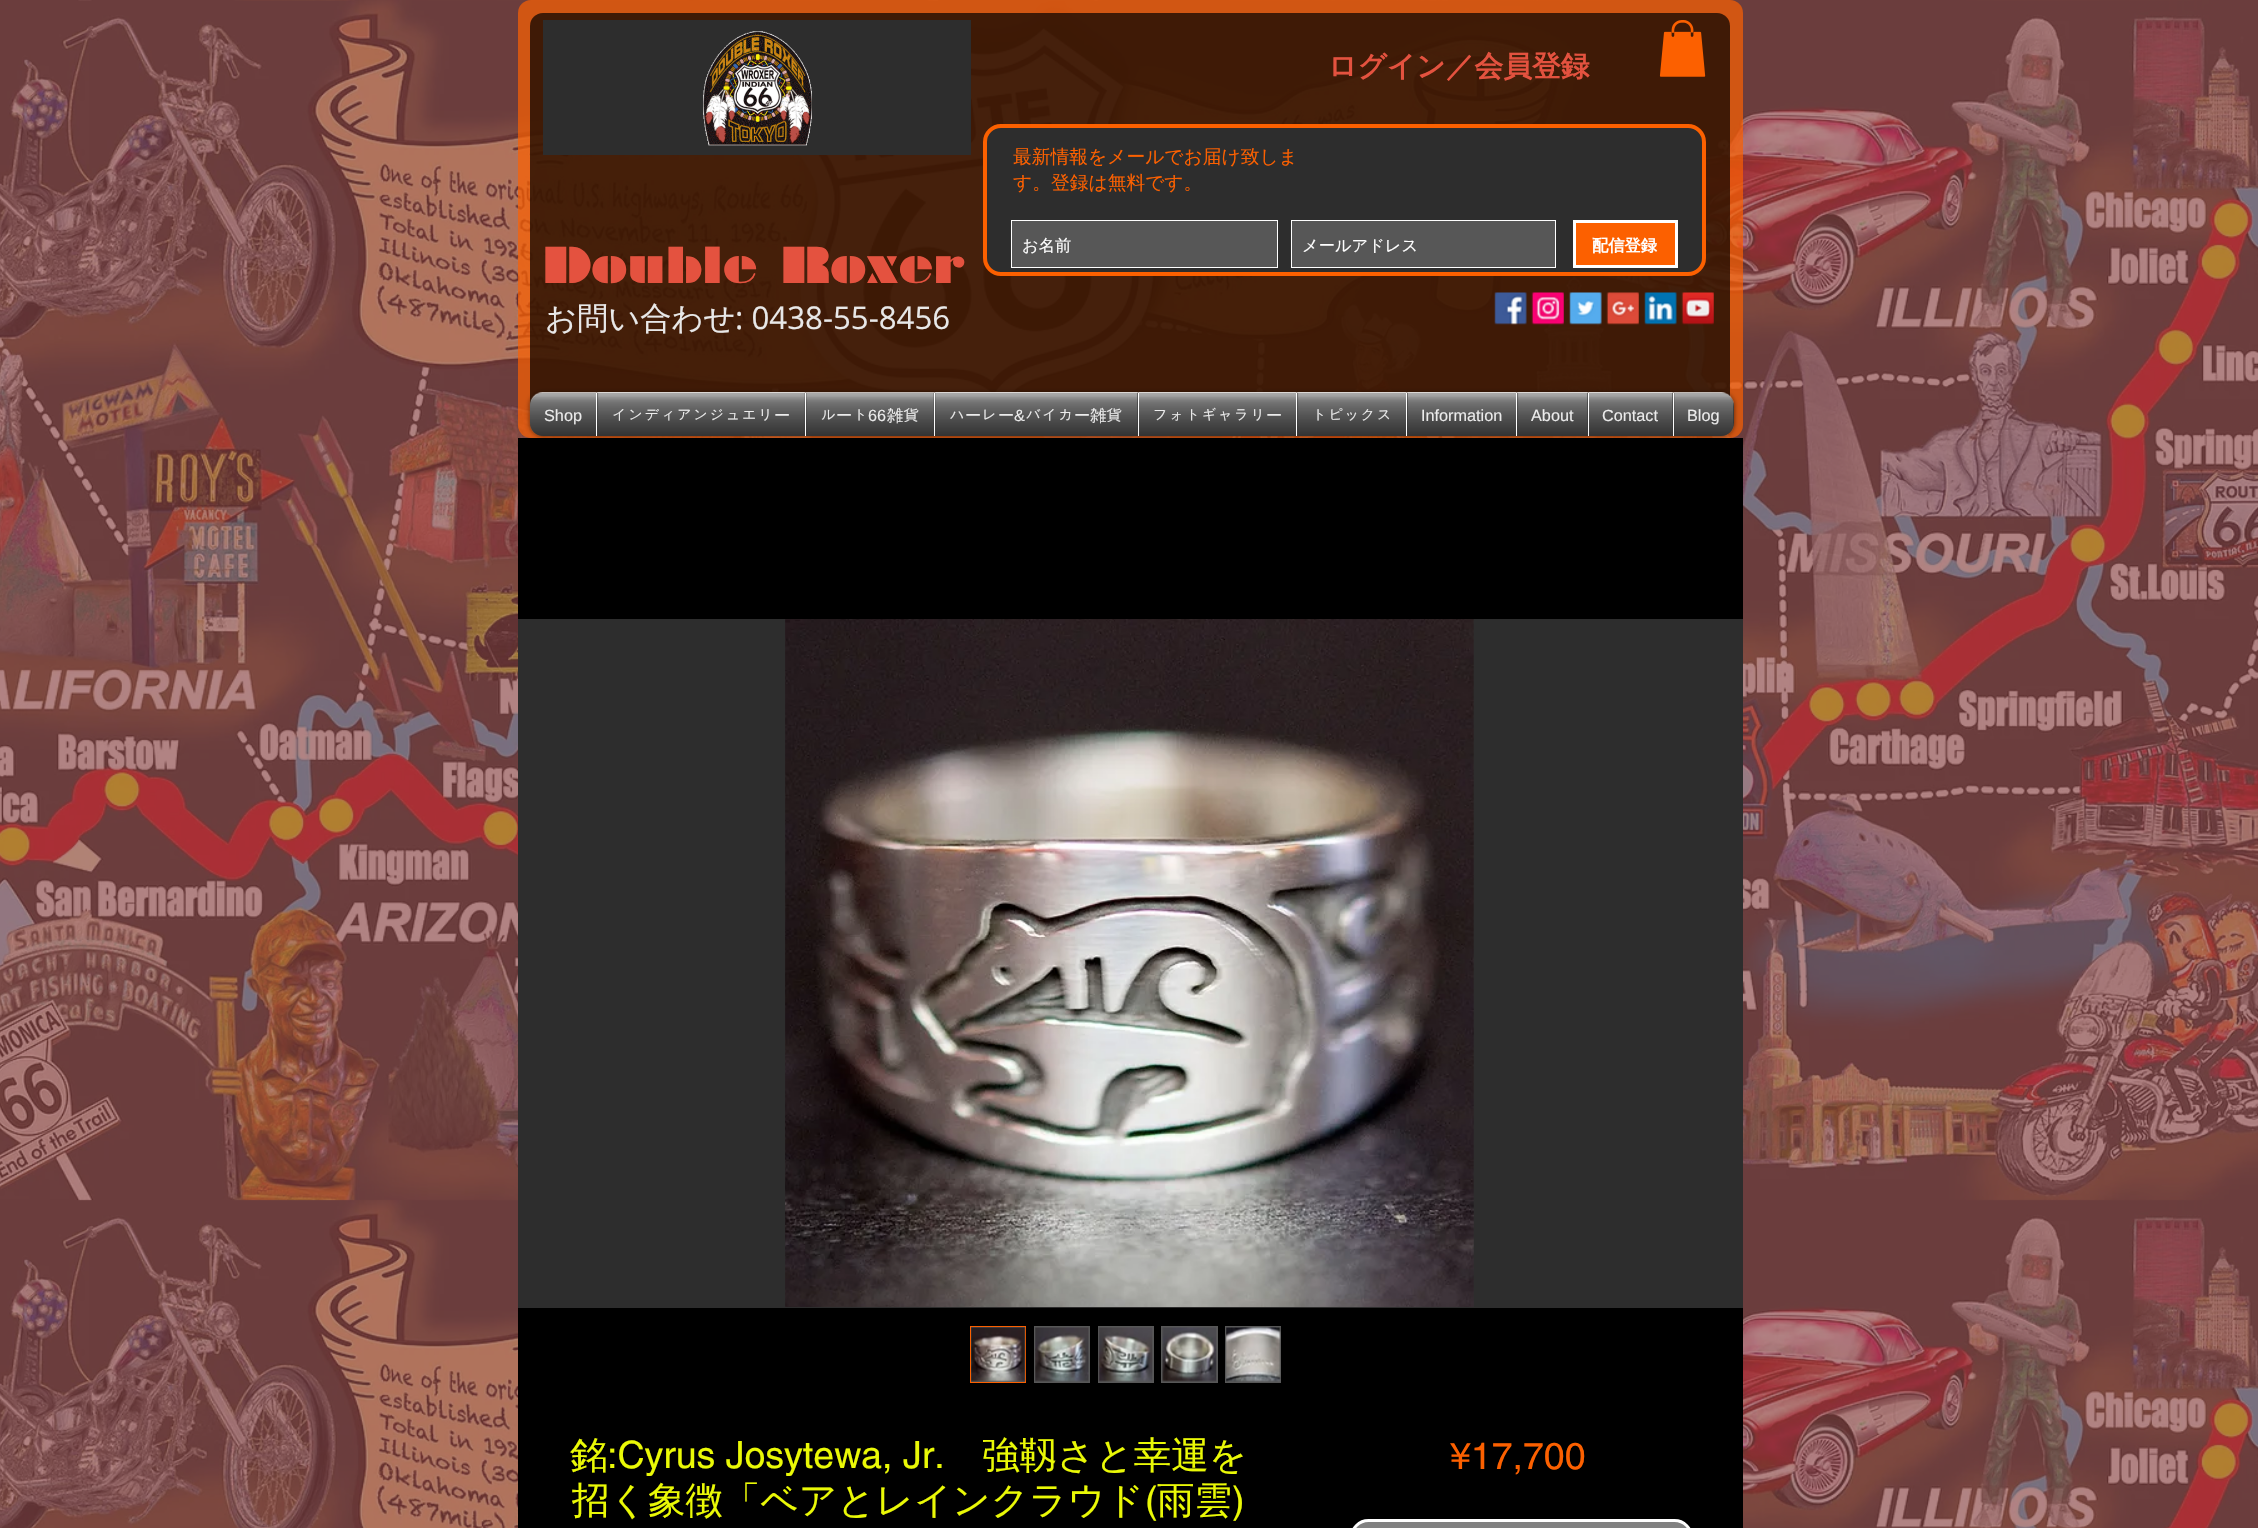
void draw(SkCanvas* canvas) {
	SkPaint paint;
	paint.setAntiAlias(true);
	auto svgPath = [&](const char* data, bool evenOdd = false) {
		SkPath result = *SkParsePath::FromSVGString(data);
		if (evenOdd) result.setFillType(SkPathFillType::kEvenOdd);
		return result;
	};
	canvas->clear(0xff8a4646);
	canvas->drawImageRect(SkImages::DeferredFromEncodedData(SkData::MakeFromFileName("img1.png")), SkRect::MakeXYWH(0, 0, 2258, 1528), SkSamplingOptions());
	paint.setColor(0xb3fc6000);
	canvas->drawRoundRect(SkRect::MakeXYWH(518, 0, 1225, 438), 13, 13, paint);
	paint.setColor(0xb3000000);
	canvas->drawRoundRect(SkRect::MakeXYWH(530, 13, 1200, 412), 13, 13, paint);
	paint.setColor(0xff2d2d2d);
	canvas->drawRect(SkRect::MakeXYWH(543, 20, 428, 135), paint);
	canvas->drawImageRect(SkImages::DeferredFromEncodedData(SkData::MakeFromFileName("img2.png")), SkRect::MakeXYWH(703, 31, 109, 115), SkSamplingOptions());
	SkFont f1(fontMgr->matchFamilyStyle("WenQuanYi Zen Hei", SkFontStyle::Bold()), 28.75);
	f1.setSubpixel(true);
	paint.setColor(0xffe4523f);
	canvas->drawString("ログイン／会員登録", 1328, 76, f1, paint);
	canvas->drawImageRect(SkImages::DeferredFromEncodedData(SkData::MakeFromFileName("img3.png")), SkRect::MakeXYWH(1659, 20, 47, 57), SkSamplingOptions());
	paint.setColor(0xff2d2d2d);
	canvas->drawRoundRect(SkRect::MakeXYWH(985, 126, 719, 148), 16, 16, paint);
	paint.setStroke(true);
	paint.setStrokeWidth(4);
	paint.setColor(0xfffc6000);
	canvas->drawRoundRect(SkRect::MakeXYWH(985, 126, 719, 148), 16, 16, paint);
	SkFont f2(fontMgr->matchFamilyStyle("WenQuanYi Zen Hei", SkFontStyle(500, SkFontStyle::kNormal_Width, SkFontStyle::kUpright_Slant)), 18.75);
	f2.setSubpixel(true);
	paint.setStroke(false);
	canvas->drawString("最新情報をメールでお届け致しま", 1013, 163, f2, paint);
	canvas->drawString("す。登録は無料です。", 1013, 189, f2, paint);
	paint.setColor(0xff575757);
	canvas->drawRect(SkRect::MakeXYWH(1011.5, 220.5, 266, 47), paint);
	paint.setStroke(true);
	paint.setStrokeWidth(1);
	paint.setColor(0xffffffff);
	canvas->drawRect(SkRect::MakeXYWH(1011.5, 220.5, 266, 47), paint);
	SkFont f3(fontMgr->matchFamilyStyle("WenQuanYi Zen Hei", SkFontStyle(500, SkFontStyle::kNormal_Width, SkFontStyle::kUpright_Slant)), 16.25);
	f3.setSubpixel(true);
	paint.setStroke(false);
	canvas->drawString("お名前", 1022, 251, f3, paint);
	paint.setColor(0xff575757);
	canvas->drawRect(SkRect::MakeXYWH(1291.5, 220.5, 264, 47), paint);
	paint.setStroke(true);
	paint.setColor(0xffffffff);
	canvas->drawRect(SkRect::MakeXYWH(1291.5, 220.5, 264, 47), paint);
	paint.setStroke(false);
	canvas->drawString("メールアドレス", 1302, 251, f3, paint);
	paint.setColor(0xfffc6000);
	canvas->drawRect(SkRect::MakeXYWH(1574.5, 221.5, 102, 45), paint);
	paint.setStroke(true);
	paint.setStrokeWidth(3);
	paint.setColor(0xffffffff);
	canvas->drawRect(SkRect::MakeXYWH(1574.5, 221.5, 102, 45), paint);
	SkFont f4(fontMgr->matchFamilyStyle("WenQuanYi Zen Hei", SkFontStyle::Bold()), 16.25);
	f4.setSubpixel(true);
	paint.setStroke(false);
	canvas->drawString("配信登録", 1592, 251, f4, paint);
	SkFont f5(fontMgr->matchFamilyStyle("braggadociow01", SkFontStyle::Normal()), 47.5);
	f5.setSubpixel(true);
	paint.setColor(0xffe4523f);
	canvas->drawString("Double Roxer", 542, 283, f5, paint);
	SkFont f6(fontMgr->matchFamilyStyle("WenQuanYi Zen Hei", SkFontStyle(500, SkFontStyle::kNormal_Width, SkFontStyle::kUpright_Slant)), 31.25);
	f6.setSubpixel(true);
	paint.setColor(0xffe8e8e8);
	canvas->drawString("お問い合わせ", 545, 329, f6, paint);
	SkFont f7(fontMgr->matchFamilyStyle("Open Sans", SkFontStyle::Normal()), 31.25);
	f7.setSubpixel(true);
	canvas->drawString(": 0438-55-8456", 735, 329, f7, paint);
	canvas->drawImageRect(SkImages::DeferredFromEncodedData(SkData::MakeFromFileName("img4.png")), SkRect::MakeXYWH(1494, 292, 33, 33), SkSamplingOptions());
	canvas->drawImageRect(SkImages::DeferredFromEncodedData(SkData::MakeFromFileName("img5.png")), SkRect::MakeXYWH(1531, 292, 33, 33), SkSamplingOptions());
	canvas->drawImageRect(SkImages::DeferredFromEncodedData(SkData::MakeFromFileName("img6.png")), SkRect::MakeXYWH(1569, 292, 33, 33), SkSamplingOptions());
	canvas->drawImageRect(SkImages::DeferredFromEncodedData(SkData::MakeFromFileName("img7.png")), SkRect::MakeXYWH(1606, 292, 33, 33), SkSamplingOptions());
	canvas->drawImageRect(SkImages::DeferredFromEncodedData(SkData::MakeFromFileName("img8.png")), SkRect::MakeXYWH(1644, 292, 33, 33), SkSamplingOptions());
	canvas->drawImageRect(SkImages::DeferredFromEncodedData(SkData::MakeFromFileName("img9.png")), SkRect::MakeXYWH(1681, 292, 33, 33), SkSamplingOptions());
	paint.setColor(0xff000000);
	canvas->drawRect(SkRect::MakeXYWH(518, 438, 1225, 1090), paint);
	paint.setColor(0x99000000);
	paint.setMaskFilter(SkMaskFilter::MakeBlur(kNormal_SkBlurStyle, 2.5));
	canvas->drawRoundRect(SkRect::MakeXYWH(530, 393, 1204, 43), 13, 13, paint);
	paint.setMaskFilter(nullptr);
	canvas->drawImageRect(SkImages::DeferredFromEncodedData(SkData::MakeFromFileName("img10.png")), SkRect::MakeXYWH(529, 392, 1205, 44), SkSamplingOptions());
	canvas->drawImageRect(SkImages::DeferredFromEncodedData(SkData::MakeFromFileName("img11.png")), SkRect::MakeXYWH(530, 397, 1203, 39), SkSamplingOptions());
	paint.setColor(0xff2d2d2d);
	canvas->drawPath(svgPath("M543 393H596V436H543C536 436 530 430 530 423V406C530 399 536 393 543 393Z"), paint);
	SkFont f8(fontMgr->matchFamilyStyle("Liberation Sans", SkFontStyle::Normal()), 16.25);
	f8.setSubpixel(true);
	paint.setColor(0xffffffff);
	canvas->drawString("Shop", 544, 421, f8, paint);
	canvas->drawImageRect(SkImages::DeferredFromEncodedData(SkData::MakeFromFileName("img12.png")), SkRect::MakeXYWH(530, 392, 66, 44), SkSamplingOptions());
	canvas->drawImageRect(SkImages::DeferredFromEncodedData(SkData::MakeFromFileName("img13.png")), SkRect::MakeXYWH(530, 397, 66, 39), SkSamplingOptions());
	paint.setColor(0xff2d2d2d);
	canvas->drawRect(SkRect::MakeXYWH(597, 393, 208, 43), paint);
	paint.setColor(0xffffffff);
	canvas->drawRect(SkRect::MakeXYWH(596, 393, 1, 43), paint);
	SkFont f9(fontMgr->matchFamilyStyle("Dotum", SkFontStyle::Normal()), 16.25);
	f9.setSubpixel(true);
	canvas->drawString("インディアンジュエリ", 611, 421, f9, paint);
	canvas->drawString("ー", 774, 421, f3, paint);
	canvas->drawImageRect(SkImages::DeferredFromEncodedData(SkData::MakeFromFileName("img14.png")), SkRect::MakeXYWH(597, 392, 209, 44), SkSamplingOptions());
	canvas->drawImageRect(SkImages::DeferredFromEncodedData(SkData::MakeFromFileName("img15.png")), SkRect::MakeXYWH(598, 397, 207, 39), SkSamplingOptions());
	paint.setColor(0xff2d2d2d);
	canvas->drawRect(SkRect::MakeXYWH(806, 393, 128, 43), paint);
	paint.setColor(0xffffffff);
	canvas->drawRect(SkRect::MakeXYWH(805, 393, 1, 43), paint);
	canvas->drawString("ル", 820, 421, f9, paint);
	canvas->drawString("ー", 836, 421, f3, paint);
	canvas->drawString("ト", 852, 421, f9, paint);
	canvas->drawString("66", 868, 421, f8, paint);
	canvas->drawString("雑", 887, 421, f3, paint);
	canvas->drawString("貨", 903, 421, f9, paint);
	canvas->drawImageRect(SkImages::DeferredFromEncodedData(SkData::MakeFromFileName("img16.png")), SkRect::MakeXYWH(806, 392, 128, 44), SkSamplingOptions());
	canvas->drawImageRect(SkImages::DeferredFromEncodedData(SkData::MakeFromFileName("img17.png")), SkRect::MakeXYWH(806, 397, 128, 39), SkSamplingOptions());
	paint.setColor(0xff2d2d2d);
	canvas->drawRect(SkRect::MakeXYWH(935, 393, 203, 43), paint);
	paint.setColor(0xffffffff);
	canvas->drawRect(SkRect::MakeXYWH(934, 393, 1, 43), paint);
	canvas->drawString("ハ", 949, 421, f9, paint);
	canvas->drawString("ー", 965, 421, f3, paint);
	canvas->drawString("レ", 981, 421, f9, paint);
	canvas->drawString("ー", 998, 421, f3, paint);
	canvas->drawString("&", 1014, 421, f8, paint);
	canvas->drawString("バイカ", 1025, 421, f9, paint);
	canvas->drawString("ー雑", 1074, 421, f3, paint);
	canvas->drawString("貨", 1106, 421, f9, paint);
	canvas->drawImageRect(SkImages::DeferredFromEncodedData(SkData::MakeFromFileName("img18.png")), SkRect::MakeXYWH(934, 392, 204, 44), SkSamplingOptions());
	canvas->drawImageRect(SkImages::DeferredFromEncodedData(SkData::MakeFromFileName("img19.png")), SkRect::MakeXYWH(934, 397, 203, 39), SkSamplingOptions());
	paint.setColor(0xff2d2d2d);
	canvas->drawRect(SkRect::MakeXYWH(1139, 393, 157, 43), paint);
	paint.setColor(0xffffffff);
	canvas->drawRect(SkRect::MakeXYWH(1138, 393, 1, 43), paint);
	canvas->drawString("フォトギャラリ", 1152, 421, f9, paint);
	canvas->drawString("ー", 1266, 421, f3, paint);
	canvas->drawImageRect(SkImages::DeferredFromEncodedData(SkData::MakeFromFileName("img20.png")), SkRect::MakeXYWH(1138, 392, 159, 44), SkSamplingOptions());
	canvas->drawImageRect(SkImages::DeferredFromEncodedData(SkData::MakeFromFileName("img21.png")), SkRect::MakeXYWH(1138, 397, 158, 39), SkSamplingOptions());
	paint.setColor(0xff2d2d2d);
	canvas->drawRect(SkRect::MakeXYWH(1297, 393, 109, 43), paint);
	paint.setColor(0xffffffff);
	canvas->drawRect(SkRect::MakeXYWH(1296, 393, 1, 43), paint);
	canvas->drawString("トピックス", 1311, 421, f9, paint);
	canvas->drawImageRect(SkImages::DeferredFromEncodedData(SkData::MakeFromFileName("img22.png")), SkRect::MakeXYWH(1297, 392, 110, 44), SkSamplingOptions());
	canvas->drawImageRect(SkImages::DeferredFromEncodedData(SkData::MakeFromFileName("img23.png")), SkRect::MakeXYWH(1298, 397, 108, 39), SkSamplingOptions());
	paint.setColor(0xff2d2d2d);
	canvas->drawRect(SkRect::MakeXYWH(1407, 393, 109, 43), paint);
	paint.setColor(0xffffffff);
	canvas->drawRect(SkRect::MakeXYWH(1406, 393, 1, 43), paint);
	canvas->drawString("Information", 1421, 421, f8, paint);
	canvas->drawImageRect(SkImages::DeferredFromEncodedData(SkData::MakeFromFileName("img24.png")), SkRect::MakeXYWH(1407, 392, 110, 44), SkSamplingOptions());
	canvas->drawImageRect(SkImages::DeferredFromEncodedData(SkData::MakeFromFileName("img25.png")), SkRect::MakeXYWH(1408, 397, 108, 39), SkSamplingOptions());
	paint.setColor(0xff2d2d2d);
	canvas->drawRect(SkRect::MakeXYWH(1517, 393, 71, 43), paint);
	paint.setColor(0xffffffff);
	canvas->drawRect(SkRect::MakeXYWH(1516, 393, 1, 43), paint);
	canvas->drawString("About", 1531, 421, f8, paint);
	canvas->drawImageRect(SkImages::DeferredFromEncodedData(SkData::MakeFromFileName("img26.png")), SkRect::MakeXYWH(1517, 392, 71, 44), SkSamplingOptions());
	canvas->drawImageRect(SkImages::DeferredFromEncodedData(SkData::MakeFromFileName("img27.png")), SkRect::MakeXYWH(1518, 397, 69, 39), SkSamplingOptions());
	paint.setColor(0xff2d2d2d);
	canvas->drawRect(SkRect::MakeXYWH(1589, 393, 84, 43), paint);
	paint.setColor(0xffffffff);
	canvas->drawRect(SkRect::MakeXYWH(1588, 393, 1, 43), paint);
	canvas->drawString("Contact", 1602, 421, f8, paint);
	canvas->drawImageRect(SkImages::DeferredFromEncodedData(SkData::MakeFromFileName("img28.png")), SkRect::MakeXYWH(1588, 392, 85, 44), SkSamplingOptions());
	canvas->drawImageRect(SkImages::DeferredFromEncodedData(SkData::MakeFromFileName("img29.png")), SkRect::MakeXYWH(1588, 397, 84, 39), SkSamplingOptions());
	paint.setColor(0xff2d2d2d);
	canvas->drawPath(svgPath("M1673 393H1721C1728 393 1734 399 1734 406V423C1734 430 1728 436 1721 436H1673Z"), paint);
	paint.setColor(0xffffffff);
	canvas->drawRect(SkRect::MakeXYWH(1673, 393, 1, 43), paint);
	canvas->drawString("Blog", 1687, 421, f8, paint);
	canvas->drawImageRect(SkImages::DeferredFromEncodedData(SkData::MakeFromFileName("img30.png")), SkRect::MakeXYWH(1673, 392, 61, 44), SkSamplingOptions());
	canvas->drawImageRect(SkImages::DeferredFromEncodedData(SkData::MakeFromFileName("img31.png")), SkRect::MakeXYWH(1673, 397, 60, 39), SkSamplingOptions());
	paint.setColor(0xff2d2d2d);
	canvas->drawRect(SkRect::MakeXYWH(518, 619, 1225, 689), paint);
	canvas->drawImageRect(SkImages::DeferredFromEncodedData(SkData::MakeFromFileName("img32.png")), SkRect::MakeXYWH(785, 619, 689, 688), SkSamplingOptions());
	paint.setColor(0xff575757);
	canvas->drawRect(SkRect::MakeXYWH(970.5, 1326.5, 55, 56), paint);
	paint.setStroke(true);
	paint.setStrokeWidth(1);
	paint.setColor(0xfffc6000);
	canvas->drawRect(SkRect::MakeXYWH(970.5, 1326.5, 55, 56), paint);
	canvas->drawImageRect(SkImages::DeferredFromEncodedData(SkData::MakeFromFileName("img33.png")), SkRect::MakeXYWH(971, 1327, 55, 55), SkSamplingOptions());
	paint.setStroke(false);
	paint.setColor(0xff575757);
	canvas->drawRect(SkRect::MakeXYWH(1034, 1326, 56, 57), paint);
	canvas->drawImageRect(SkImages::DeferredFromEncodedData(SkData::MakeFromFileName("img34.png")), SkRect::MakeXYWH(1035, 1327, 54, 55), SkSamplingOptions());
	canvas->drawRect(SkRect::MakeXYWH(1098, 1326, 56, 57), paint);
	canvas->drawImageRect(SkImages::DeferredFromEncodedData(SkData::MakeFromFileName("img35.png")), SkRect::MakeXYWH(1098, 1327, 55, 55), SkSamplingOptions());
	canvas->drawRect(SkRect::MakeXYWH(1161, 1326, 57, 57), paint);
	canvas->drawImageRect(SkImages::DeferredFromEncodedData(SkData::MakeFromFileName("img36.png")), SkRect::MakeXYWH(1162, 1327, 55, 55), SkSamplingOptions());
	canvas->drawRect(SkRect::MakeXYWH(1225, 1326, 56, 57), paint);
	canvas->drawImageRect(SkImages::DeferredFromEncodedData(SkData::MakeFromFileName("img37.png")), SkRect::MakeXYWH(1226, 1327, 55, 55), SkSamplingOptions());
	SkFont f10(fontMgr->matchFamilyStyle("WenQuanYi Zen Hei", SkFontStyle(500, SkFontStyle::kNormal_Width, SkFontStyle::kUpright_Slant)), 37.5);
	f10.setSubpixel(true);
	paint.setColor(0xffeaf906);
	canvas->drawString("銘", 570, 1468, f10, paint);
	SkFont f11(fontMgr->matchFamilyStyle("helvetica", SkFontStyle::Normal()), 37.5);
	f11.setSubpixel(true);
	canvas->drawString(":Cyrus Josytewa, Jr.", 607, 1468, f11, paint);
	canvas->drawString("強靱さと幸運を", 982, 1468, f10, paint);
	canvas->drawString("招く象徴「ベアとレインクラウド", 572, 1513, f10, paint);
	canvas->drawString("(", 1145, 1513, f11, paint);
	canvas->drawString("雨雲", 1157, 1513, f10, paint);
	canvas->drawString(")", 1232, 1513, f11, paint);
	paint.setColor(0xfffc6000);
	canvas->drawString("¥17,700", 1450, 1469, f11, paint);
	paint.setColor(0xff818181);
	canvas->drawRoundRect(SkRect::MakeXYWH(1351.5, 1520.5, 340, 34), 23.5, 23.5, paint);
	paint.setStroke(true);
	paint.setStrokeWidth(3);
	paint.setColor(0xffffffff);
	canvas->drawRoundRect(SkRect::MakeXYWH(1351.5, 1520.5, 340, 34), 23.5, 23.5, paint);
}
